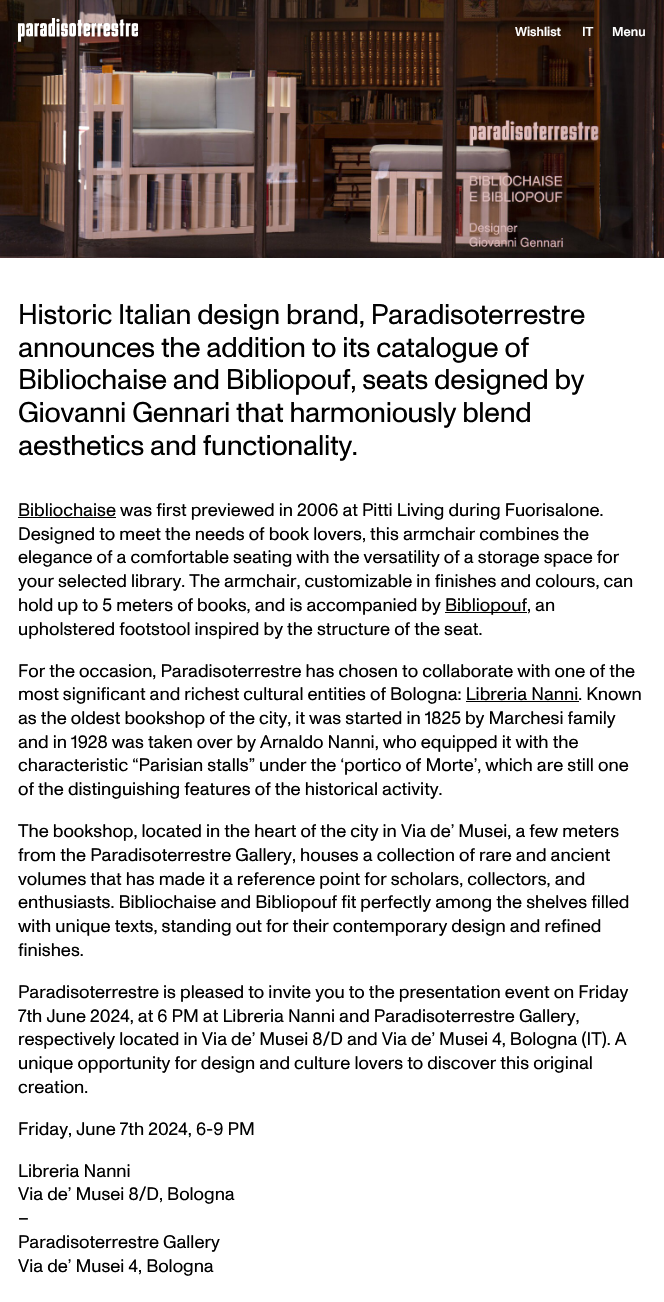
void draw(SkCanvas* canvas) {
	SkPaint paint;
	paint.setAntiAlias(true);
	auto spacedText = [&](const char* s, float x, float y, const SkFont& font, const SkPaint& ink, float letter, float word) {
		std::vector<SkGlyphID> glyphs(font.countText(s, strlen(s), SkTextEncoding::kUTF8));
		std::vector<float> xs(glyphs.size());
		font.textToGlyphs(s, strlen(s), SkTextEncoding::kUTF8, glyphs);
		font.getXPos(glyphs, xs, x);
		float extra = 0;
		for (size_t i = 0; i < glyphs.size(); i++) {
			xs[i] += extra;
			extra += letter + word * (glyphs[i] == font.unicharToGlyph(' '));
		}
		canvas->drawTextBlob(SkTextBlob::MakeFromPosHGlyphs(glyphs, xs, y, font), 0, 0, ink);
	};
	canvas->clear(0xffffffff);
	canvas->drawImageRect(SkImages::DeferredFromEncodedData(SkData::MakeFromFileName("img2.png")), SkRect::MakeXYWH(0, 0, 664, 258), SkSamplingOptions());
	canvas->drawImageRect(SkImages::DeferredFromEncodedData(SkData::MakeFromFileName("img1.png")), SkRect::MakeXYWH(18, 18, 120, 24), SkSamplingOptions());
	SkFont f1(fontMgr->matchFamilyStyle("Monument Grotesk", SkFontStyle(500, SkFontStyle::kNormal_Width, SkFontStyle::kUpright_Slant)), 13);
	f1.setSubpixel(true);
	paint.setColor(0xffffffff);
	canvas->drawString("Wishlist", 515, 36, f1, paint);
	canvas->drawString("IT", 582, 36, f1, paint);
	canvas->drawString("Menu", 612, 36, f1, paint);
	SkFont f2(fontMgr->matchFamilyStyle("Monument Grotesk", SkFontStyle::Normal()), 28.4);
	f2.setSubpixel(true);
	paint.setColor(0xff000000);
	spacedText("Historic Italian design brand, Paradisoterrestre", 18, 324, f2, paint, -0.3, 0);
	spacedText("announces the addition to its catalogue of", 18, 357, f2, paint, -0.3, 0);
	spacedText("Bibliochaise and Bibliopouf, seats designed by", 18, 389, f2, paint, -0.3, 0);
	spacedText("Giovanni Gennari that harmoniously blend", 18, 422, f2, paint, -0.3, 0);
	spacedText("aesthetics and functionality.", 18, 455, f2, paint, -0.3, 0);
	canvas->drawRect(SkRect::MakeXYWH(18, 517, 98, 1), paint);
	SkFont f3(fontMgr->matchFamilyStyle("Monument Grotesk", SkFontStyle::Normal()), 18.25);
	f3.setSubpixel(true);
	canvas->drawString("Bibliochaise was first previewed in 2006 at Pitti Living during Fuorisalone.", 18, 516, f3, paint);
	canvas->drawString("Designed to meet the needs of book lovers, this armchair combines the", 18, 540, f3, paint);
	canvas->drawString("elegance of a comfortable seating with the versatility of a storage space for", 18, 563, f3, paint);
	canvas->drawString("your selected library. The armchair, customizable in finishes and colours, can", 18, 587, f3, paint);
	canvas->drawString("hold up to 5 meters of books, and is accompanied by", 18, 611, f3, paint);
	canvas->drawRect(SkRect::MakeXYWH(445, 612, 82, 1), paint);
	canvas->drawString("Bibliopouf, an", 445, 611, f3, paint);
	canvas->drawString("upholstered footstool inspired by the structure of the seat.", 18, 635, f3, paint);
	canvas->drawString("For the occasion, Paradisoterrestre has chosen to collaborate with one of the", 18, 677, f3, paint);
	canvas->drawString("most significant and richest cultural entities of Bologna: Libreria Nanni. Known", 18, 700, f3, paint);
	canvas->drawRect(SkRect::MakeXYWH(466, 701, 113, 1), paint);
	canvas->drawString("as the oldest bookshop of the city, it was started in 1825 by Marchesi family", 18, 724, f3, paint);
	canvas->drawString("and in 1928 was taken over by Arnaldo Nanni, who equipped it with the", 18, 748, f3, paint);
	canvas->drawString("characteristic “Parisian stalls” under the ‘portico of Morte’, which are still one", 18, 771, f3, paint);
	canvas->drawString("of the distinguishing features of the historical activity.", 18, 795, f3, paint);
	canvas->drawString("The bookshop, located in the heart of the city in Via de’ Musei, a few meters", 18, 837, f3, paint);
	canvas->drawString("from the Paradisoterrestre Gallery, houses a collection of rare and ancient", 18, 861, f3, paint);
	canvas->drawString("volumes that has made it a reference point for scholars, collectors, and", 18, 885, f3, paint);
	canvas->drawString("enthusiasts. Bibliochaise and Bibliopouf fit perfectly among the shelves filled", 18, 908, f3, paint);
	canvas->drawString("with unique texts, standing out for their contemporary design and refined", 18, 932, f3, paint);
	canvas->drawString("finishes.", 18, 956, f3, paint);
	canvas->drawString("Paradisoterrestre is pleased to invite you to the presentation event on Friday", 18, 998, f3, paint);
	canvas->drawString("7th June 2024, at 6 PM at Libreria Nanni and Paradisoterrestre Gallery,", 18, 1022, f3, paint);
	canvas->drawString("respectively located in Via de’ Musei 8/D and Via de’ Musei 4, Bologna (IT). A", 18, 1045, f3, paint);
	canvas->drawString("unique opportunity for design and culture lovers to discover this original", 18, 1069, f3, paint);
	canvas->drawString("creation.", 18, 1093, f3, paint);
	canvas->drawString("Friday, June 7th 2024, 6-9 PM", 18, 1135, f3, paint);
	canvas->drawString("Libreria Nanni", 18, 1177, f3, paint);
	canvas->drawString("Via de’ Musei 8/D, Bologna", 18, 1200, f3, paint);
	canvas->drawString("–", 18, 1224, f3, paint);
	canvas->drawString("Paradisoterrestre Gallery", 18, 1248, f3, paint);
	canvas->drawString("Via de’ Musei 4, Bologna", 18, 1272, f3, paint);
}
